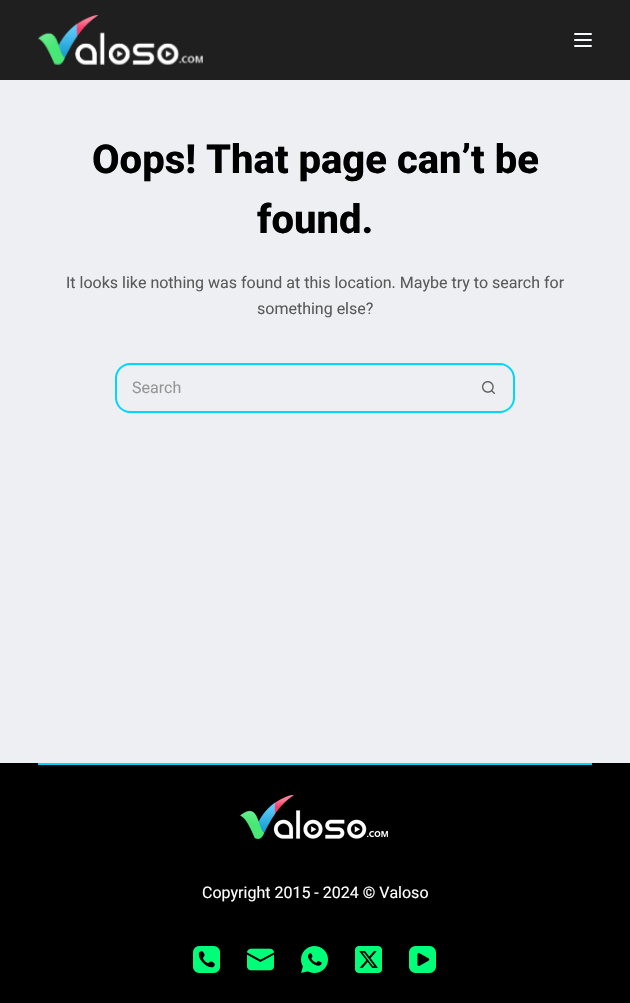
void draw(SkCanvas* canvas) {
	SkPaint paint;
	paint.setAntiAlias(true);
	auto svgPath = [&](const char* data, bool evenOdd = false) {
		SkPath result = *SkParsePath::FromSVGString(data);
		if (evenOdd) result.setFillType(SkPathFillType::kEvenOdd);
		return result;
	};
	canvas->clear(0xffedeff2);
	paint.setColor(0xff1f1f1f);
	canvas->drawRect(SkRect::MakeXYWH(0, 0, 630, 80), paint);
	canvas->drawImageRect(SkImages::DeferredFromEncodedData(SkData::MakeFromFileName("img1.png")), SkRect::MakeXYWH(38, 15, 165, 50), SkSamplingOptions());
	paint.setColor(0xfff9fafb);
	canvas->drawRoundRect(SkRect::MakeXYWH(574, 33, 18, 2), 1, 1, paint);
	canvas->drawRoundRect(SkRect::MakeXYWH(574, 39, 18, 2), 1, 1, paint);
	canvas->drawRoundRect(SkRect::MakeXYWH(574, 45, 18, 2), 1, 1, paint);
	SkFont f1(fontMgr->matchFamilyStyle("Roboto", SkFontStyle(800, SkFontStyle::kNormal_Width, SkFontStyle::kUpright_Slant)), 40);
	f1.setSubpixel(true);
	paint.setColor(0xff000000);
	canvas->drawString("Oops! That page can’t be", 92, 173, f1, paint);
	canvas->drawString("found.", 257, 233, f1, paint);
	SkFont f2(fontMgr->matchFamilyStyle("Roboto", SkFontStyle::Normal()), 16);
	f2.setSubpixel(true);
	paint.setColor(0xff5a5a5a);
	canvas->drawString("It looks like nothing was found at this location. Maybe try to search for", 66, 288, f2, paint);
	canvas->drawString("something else?", 257, 314, f2, paint);
	paint.setColor(0xff00d6ff);
	canvas->drawPath(svgPath("M130 363H465V413H130C122 413 115 406 115 398V378C115 370 122 363 130 363ZM130 365H465V411H130C123 411 117 405 117 398V378C117 371 123 365 130 365Z", true), paint);
	paint.setColor(0xff959697);
	canvas->drawString("Search", 132, 393, f2, paint);
	paint.setColor(0xff00d6ff);
	canvas->drawPath(svgPath("M465 363H500C508 363 515 370 515 378V398C515 406 508 413 500 413H465ZM465 365H500C507 365 513 371 513 378V398C513 405 507 411 500 411H465Z", true), paint);
	canvas->drawImageRect(SkImages::DeferredFromEncodedData(SkData::MakeFromFileName("img2.png")), SkRect::MakeXYWH(482, 381, 13, 13), SkSamplingOptions());
	paint.setColor(0xff000000);
	canvas->drawRect(SkRect::MakeXYWH(0, 763, 630, 240), paint);
	paint.setColor(0xff00d6ff);
	canvas->drawRect(SkRect::MakeXYWH(38, 763, 554, 2), paint);
	canvas->drawImageRect(SkImages::DeferredFromEncodedData(SkData::MakeFromFileName("img3.png")), SkRect::MakeXYWH(240, 795, 148, 44), SkSamplingOptions());
	paint.setColor(0xffffffff);
	canvas->drawString("Copyright 2015 - 2024 © Valoso", 202, 898, f2, paint);
	canvas->drawImageRect(SkImages::DeferredFromEncodedData(SkData::MakeFromFileName("img4.png")), SkRect::MakeXYWH(193, 946, 27, 27), SkSamplingOptions());
	canvas->drawImageRect(SkImages::DeferredFromEncodedData(SkData::MakeFromFileName("img5.png")), SkRect::MakeXYWH(247, 948, 27, 23), SkSamplingOptions());
	canvas->drawImageRect(SkImages::DeferredFromEncodedData(SkData::MakeFromFileName("img6.png")), SkRect::MakeXYWH(301, 946, 27, 27), SkSamplingOptions());
	canvas->drawImageRect(SkImages::DeferredFromEncodedData(SkData::MakeFromFileName("img7.png")), SkRect::MakeXYWH(355, 946, 27, 27), SkSamplingOptions());
	canvas->drawImageRect(SkImages::DeferredFromEncodedData(SkData::MakeFromFileName("img8.png")), SkRect::MakeXYWH(409, 946, 27, 27), SkSamplingOptions());
}
